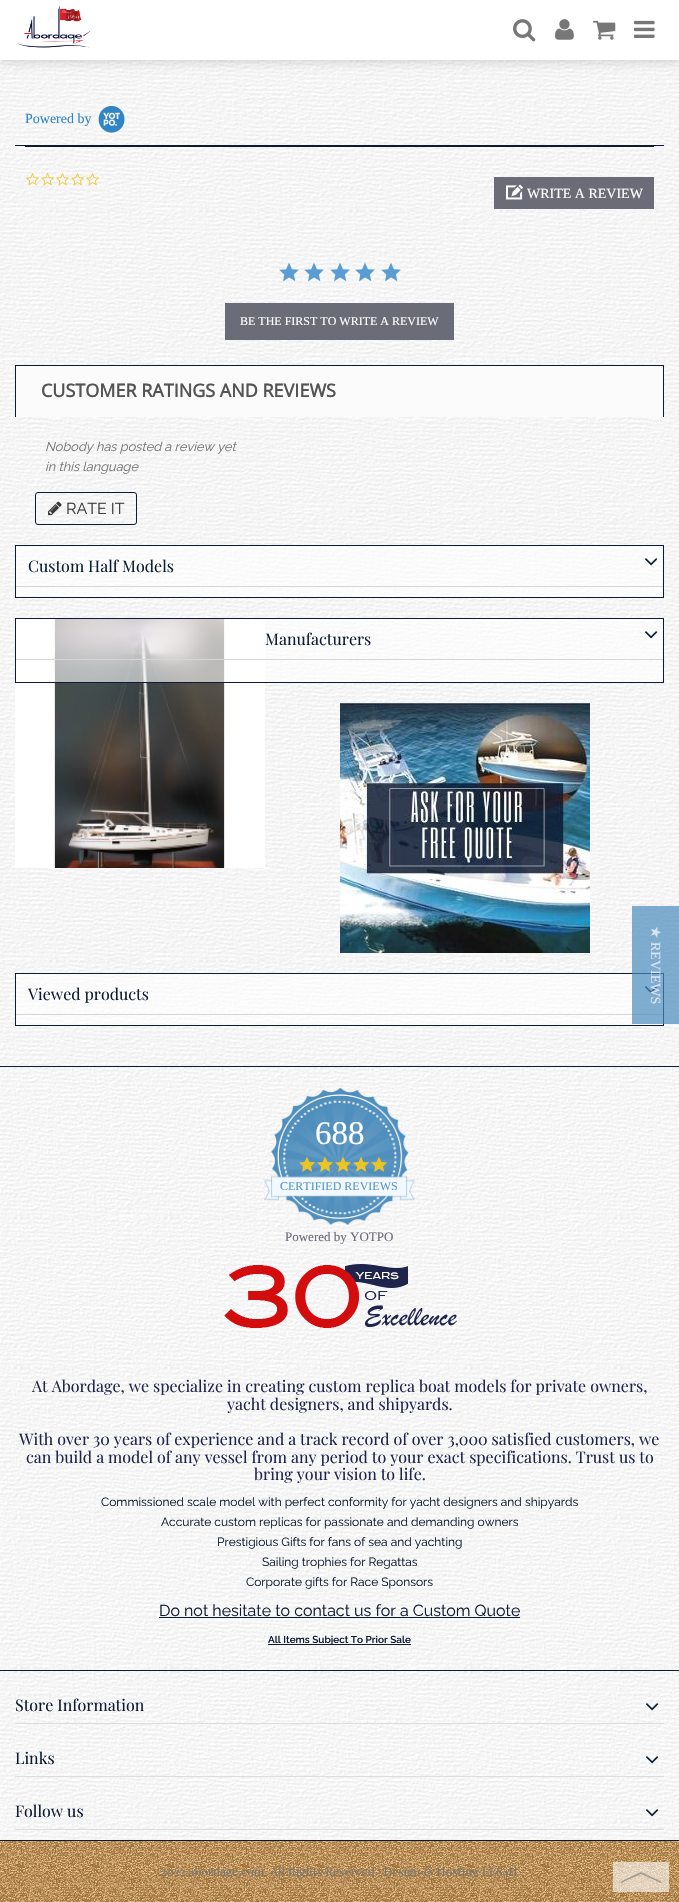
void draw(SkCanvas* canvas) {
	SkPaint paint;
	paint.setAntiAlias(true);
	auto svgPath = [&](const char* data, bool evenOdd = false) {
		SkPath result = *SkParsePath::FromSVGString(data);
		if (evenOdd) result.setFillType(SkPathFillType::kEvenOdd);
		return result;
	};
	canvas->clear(0xffffffff);
	canvas->drawImageRect(SkImages::DeferredFromEncodedData(SkData::MakeFromFileName("img1.png")), SkRect::MakeXYWH(0, 1841, 679, 61), SkSamplingOptions());
	canvas->drawImageRect(SkImages::DeferredFromEncodedData(SkData::MakeFromFileName("img7.png")), SkRect::MakeXYWH(0, 60, 679, 1006), SkSamplingOptions());
	paint.setColor(0x26000000);
	paint.setMaskFilter(SkMaskFilter::MakeBlur(kNormal_SkBlurStyle, 5));
	canvas->drawRect(SkRect::MakeXYWH(0, 2, 679, 60), paint);
	paint.setMaskFilter(nullptr);
	paint.setColor(0xffffffff);
	canvas->drawRect(SkRect::MakeXYWH(0, 0, 679, 60), paint);
	canvas->drawImageRect(SkImages::DeferredFromEncodedData(SkData::MakeFromFileName("img2.png")), SkRect::MakeXYWH(16, 5, 76, 43), SkSamplingOptions());
	canvas->drawImageRect(SkImages::DeferredFromEncodedData(SkData::MakeFromFileName("img3.png")), SkRect::MakeXYWH(513, 19, 23, 23), SkSamplingOptions());
	canvas->drawImageRect(SkImages::DeferredFromEncodedData(SkData::MakeFromFileName("img4.png")), SkRect::MakeXYWH(555, 19, 19, 21), SkSamplingOptions());
	canvas->drawImageRect(SkImages::DeferredFromEncodedData(SkData::MakeFromFileName("img5.png")), SkRect::MakeXYWH(593, 20, 23, 20), SkSamplingOptions());
	canvas->drawImageRect(SkImages::DeferredFromEncodedData(SkData::MakeFromFileName("img6.png")), SkRect::MakeXYWH(634, 20, 21, 18), SkSamplingOptions());
	paint.setColor(0xff0d1a31);
	canvas->drawRect(SkRect::MakeXYWH(15, 145, 649, 1), paint);
	SkFont f1(fontMgr->matchFamilyStyle("Liberation Serif", SkFontStyle::Normal()), 14);
	f1.setSubpixel(true);
	paint.setColor(0xff3085c7);
	canvas->drawString("Powered by", 25, 123, f1, paint);
	canvas->drawImageRect(SkImages::DeferredFromEncodedData(SkData::MakeFromFileName("img8.png")), SkRect::MakeXYWH(98, 105, 27, 28), SkSamplingOptions());
	paint.setColor(0xff0d1a31);
	canvas->drawRect(SkRect::MakeXYWH(25, 146, 629, 1), paint);
	canvas->drawImageRect(SkImages::DeferredFromEncodedData(SkData::MakeFromFileName("img9.png")), SkRect::MakeXYWH(26, 173, 14, 13), SkSamplingOptions());
	canvas->drawImageRect(SkImages::DeferredFromEncodedData(SkData::MakeFromFileName("img10.png")), SkRect::MakeXYWH(41, 173, 14, 13), SkSamplingOptions());
	canvas->drawImageRect(SkImages::DeferredFromEncodedData(SkData::MakeFromFileName("img11.png")), SkRect::MakeXYWH(56, 173, 14, 13), SkSamplingOptions());
	canvas->drawImageRect(SkImages::DeferredFromEncodedData(SkData::MakeFromFileName("img12.png")), SkRect::MakeXYWH(71, 173, 14, 13), SkSamplingOptions());
	canvas->drawImageRect(SkImages::DeferredFromEncodedData(SkData::MakeFromFileName("img13.png")), SkRect::MakeXYWH(86, 173, 14, 13), SkSamplingOptions());
	paint.setColor(0xff6a6c77);
	canvas->drawRect(SkRect::MakeXYWH(494, 177, 160, 32), paint);
	canvas->drawImageRect(SkImages::DeferredFromEncodedData(SkData::MakeFromFileName("img14.png")), SkRect::MakeXYWH(506, 184, 17, 16), SkSamplingOptions());
	paint.setColor(0xffffffff);
	canvas->drawString("WRITE A REVIEW", 527, 198, f1, paint);
	canvas->drawImageRect(SkImages::DeferredFromEncodedData(SkData::MakeFromFileName("img15.png")), SkRect::MakeXYWH(279, 262, 20, 20), SkSamplingOptions());
	canvas->drawImageRect(SkImages::DeferredFromEncodedData(SkData::MakeFromFileName("img16.png")), SkRect::MakeXYWH(304, 262, 20, 20), SkSamplingOptions());
	canvas->drawImageRect(SkImages::DeferredFromEncodedData(SkData::MakeFromFileName("img17.png")), SkRect::MakeXYWH(330, 262, 20, 20), SkSamplingOptions());
	canvas->drawImageRect(SkImages::DeferredFromEncodedData(SkData::MakeFromFileName("img18.png")), SkRect::MakeXYWH(355, 262, 20, 20), SkSamplingOptions());
	canvas->drawImageRect(SkImages::DeferredFromEncodedData(SkData::MakeFromFileName("img19.png")), SkRect::MakeXYWH(381, 262, 20, 20), SkSamplingOptions());
	paint.setColor(0xff6a6c77);
	canvas->drawRect(SkRect::MakeXYWH(225, 303, 229, 37), paint);
	SkFont f2(fontMgr->matchFamilyStyle("Liberation Serif", SkFontStyle::Normal()), 12);
	f2.setSubpixel(true);
	paint.setColor(0xffffffff);
	canvas->drawString("BE THE FIRST TO WRITE A REVIEW", 240, 325, f2, paint);
	paint.setColor(0xfffbfbfb);
	canvas->drawRect(SkRect::MakeXYWH(16, 366, 647, 51), paint);
	paint.setColor(0xff0d1a31);
	canvas->drawRect(SkRect::MakeXYWH(15, 365, 649, 1), paint);
	canvas->drawRect(SkRect::MakeXYWH(663, 365, 1, 52), paint);
	canvas->drawRect(SkRect::MakeXYWH(15, 365, 1, 52), paint);
	SkFont f3(fontMgr->matchFamilyStyle("Open Sans", SkFontStyle::Bold()), 18);
	f3.setSubpixel(true);
	paint.setColor(0xff555454);
	canvas->drawString("CUSTOMER RATINGS AND REVIEWS", 41, 397, f3, paint);
	SkFont f4(fontMgr->matchFamilyStyle("Raleway", SkFontStyle(100, SkFontStyle::kNormal_Width, SkFontStyle::kItalic_Slant)), 12.75);
	f4.setSubpixel(true);
	paint.setColor(0xff777676);
	canvas->drawString("Nobody has posted a review yet", 45, 451, f4, paint);
	canvas->drawString("in this language", 45, 471, f4, paint);
	paint.setStroke(true);
	paint.setStrokeWidth(1);
	paint.setColor(0xff0d1a31);
	canvas->drawRoundRect(SkRect::MakeXYWH(35.5, 492.5, 101, 32), 2.5, 2.5, paint);
	canvas->drawImageRect(SkImages::DeferredFromEncodedData(SkData::MakeFromFileName("img20.png")), SkRect::MakeXYWH(48, 501, 14, 15), SkSamplingOptions());
	SkFont f5(fontMgr->matchFamilyStyle("Raleway", SkFontStyle(100, SkFontStyle::kNormal_Width, SkFontStyle::kUpright_Slant)), 16);
	f5.setSubpixel(true);
	paint.setStroke(false);
	paint.setColor(0xff3b3b3b);
	canvas->drawString("RATE IT", 66, 514, f5, paint);
	paint.setColor(0x99ffffff);
	canvas->drawRect(SkRect::MakeXYWH(15.5, 545.5, 648, 52), paint);
	paint.setStroke(true);
	paint.setColor(0xff0d1a31);
	canvas->drawRect(SkRect::MakeXYWH(15.5, 545.5, 648, 52), paint);
	paint.setStroke(false);
	paint.setColor(0xffd6d4d4);
	canvas->drawRect(SkRect::MakeXYWH(16, 586, 647, 1), paint);
	SkFont f6(fontMgr->matchFamilyStyle("Playfair Display", SkFontStyle::Normal()), 16);
	f6.setSubpixel(true);
	paint.setColor(0xff0d1a31);
	canvas->drawString("Custom Half Models", 28, 572, f6, paint);
	canvas->drawImageRect(SkImages::DeferredFromEncodedData(SkData::MakeFromFileName("img21.png")), SkRect::MakeXYWH(645, 558, 13, 8), SkSamplingOptions());
	canvas->drawImageRect(SkImages::DeferredFromEncodedData(SkData::MakeFromFileName("img22.png")), SkRect::MakeXYWH(15, 619, 250, 249), SkSamplingOptions());
	paint.setColor(0x99ffffff);
	canvas->drawRect(SkRect::MakeXYWH(54, 619, 609, 63), paint);
	paint.setStroke(true);
	paint.setColor(0xff0d1a31);
	canvas->drawRect(SkRect::MakeXYWH(15.5, 618.5, 648, 64), paint);
	paint.setStroke(false);
	paint.setColor(0xffd6d4d4);
	canvas->drawRect(SkRect::MakeXYWH(16, 659, 647, 1), paint);
	paint.setColor(0xff0d1a31);
	canvas->drawString("Manufacturers", 265, 645, f6, paint);
	canvas->drawImageRect(SkImages::DeferredFromEncodedData(SkData::MakeFromFileName("img23.png")), SkRect::MakeXYWH(645, 631, 13, 8), SkSamplingOptions());
	canvas->drawImageRect(SkImages::DeferredFromEncodedData(SkData::MakeFromFileName("img24.png")), SkRect::MakeXYWH(340, 703, 250, 250), SkSamplingOptions());
	paint.setColor(0x99ffffff);
	canvas->drawRect(SkRect::MakeXYWH(15.5, 973.5, 648, 52), paint);
	paint.setStroke(true);
	paint.setColor(0xff0d1a31);
	canvas->drawRect(SkRect::MakeXYWH(15.5, 973.5, 648, 52), paint);
	paint.setStroke(false);
	paint.setColor(0xffd6d4d4);
	canvas->drawRect(SkRect::MakeXYWH(16, 1014, 647, 1), paint);
	paint.setColor(0xff0d1a31);
	canvas->drawString("Viewed products", 28, 1000, f6, paint);
	canvas->drawImageRect(SkImages::DeferredFromEncodedData(SkData::MakeFromFileName("img25.png")), SkRect::MakeXYWH(645, 986, 13, 8), SkSamplingOptions());
	canvas->drawImageRect(SkImages::DeferredFromEncodedData(SkData::MakeFromFileName("img26.png")), SkRect::MakeXYWH(0, 1067, 679, 603), SkSamplingOptions());
	paint.setColor(0xff0a1d31);
	canvas->drawRect(SkRect::MakeXYWH(0, 1066, 679, 1), paint);
	canvas->drawImageRect(SkImages::DeferredFromEncodedData(SkData::MakeFromFileName("img27.png")), SkRect::MakeXYWH(264, 1088, 151, 137), SkSamplingOptions());
	SkFont f7(fontMgr->matchFamilyStyle("Liberation Serif", SkFontStyle::Normal()), 33);
	f7.setSubpixel(true);
	paint.setColor(0xffffffff);
	canvas->drawString("688", 315, 1144, f7, paint);
	canvas->drawImageRect(SkImages::DeferredFromEncodedData(SkData::MakeFromFileName("img28.png")), SkRect::MakeXYWH(299, 1156, 16, 16), SkSamplingOptions());
	canvas->drawImageRect(SkImages::DeferredFromEncodedData(SkData::MakeFromFileName("img29.png")), SkRect::MakeXYWH(317, 1156, 16, 16), SkSamplingOptions());
	canvas->drawImageRect(SkImages::DeferredFromEncodedData(SkData::MakeFromFileName("img30.png")), SkRect::MakeXYWH(335, 1156, 16, 16), SkSamplingOptions());
	canvas->drawImageRect(SkImages::DeferredFromEncodedData(SkData::MakeFromFileName("img31.png")), SkRect::MakeXYWH(353, 1156, 16, 16), SkSamplingOptions());
	canvas->drawImageRect(SkImages::DeferredFromEncodedData(SkData::MakeFromFileName("img32.png")), SkRect::MakeXYWH(371, 1156, 16, 16), SkSamplingOptions());
	paint.setColor(0xff5997c1);
	canvas->drawString("CERTIFIED REVIEWS", 280, 1190, f2, paint);
	SkFont f8(fontMgr->matchFamilyStyle("Liberation Serif", SkFontStyle::Normal()), 13);
	f8.setSubpixel(true);
	paint.setColor(0xff6a6c77);
	canvas->drawString("Powered by YOTPO", 285, 1241, f8, paint);
	canvas->drawImageRect(SkImages::DeferredFromEncodedData(SkData::MakeFromFileName("img33.png")), SkRect::MakeXYWH(224, 1264, 233, 64), SkSamplingOptions());
	paint.setColor(0xff1e244c);
	canvas->drawString("At Abordage, we specialize in creating custom replica boat models for private owners,", 32, 1392, f6, paint);
	canvas->drawString("yacht designers, and shipyards.", 227, 1410, f6, paint);
	canvas->drawString("With over 30 years of experience and a track record of over 3,000 satisfied customers, we", 19, 1445, f6, paint);
	canvas->drawString("can build a model of any vessel from any period to your exact specifications. Trust us to", 26, 1463, f6, paint);
	canvas->drawString("bring your vision to life.", 254, 1480, f6, paint);
	SkFont f9(fontMgr->matchFamilyStyle("Raleway", SkFontStyle(100, SkFontStyle::kNormal_Width, SkFontStyle::kUpright_Slant)), 12);
	f9.setSubpixel(true);
	paint.setColor(0xff0d1a31);
	canvas->drawString("Commissioned scale model with perfect conformity for yacht designers and shipyards", 101, 1506, f9, paint);
	canvas->drawString("Accurate custom replicas for passionate and demanding owners", 161, 1526, f9, paint);
	canvas->drawString("Prestigious Gifts for fans of sea and yachting", 217, 1546, f9, paint);
	canvas->drawString("Sailing trophies for Regattas", 262, 1566, f9, paint);
	canvas->drawString("Corporate gifts for Race Sponsors", 246, 1586, f9, paint);
	canvas->drawString("Do not hesitate to contact us for a Custom Quote", 159, 1616, f5, paint);
	paint.setColor(0xff0a1d31);
	canvas->drawRect(SkRect::MakeXYWH(159, 1617, 361, 1), paint);
	canvas->drawRect(SkRect::MakeXYWH(268, 1644, 143, 1), paint);
	SkFont f10(fontMgr->matchFamilyStyle("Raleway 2", SkFontStyle(100, SkFontStyle::kNormal_Width, SkFontStyle::kUpright_Slant)), 10);
	f10.setSubpixel(true);
	paint.setColor(0xff0d1a31);
	canvas->drawString("All Items Subject To Prior Sale", 268, 1643, f10, paint);
	canvas->drawImageRect(SkImages::DeferredFromEncodedData(SkData::MakeFromFileName("img34.png")), SkRect::MakeXYWH(0, 1671, 679, 169), SkSamplingOptions());
	paint.setColor(0xff0a1d31);
	canvas->drawRect(SkRect::MakeXYWH(0, 1670, 679, 1), paint);
	canvas->drawRect(SkRect::MakeXYWH(0, 1840, 679, 1), paint);
	paint.setColor(0xffdddddd);
	canvas->drawRect(SkRect::MakeXYWH(15, 1723, 649, 1), paint);
	paint.setColor(0xff0d1a31);
	canvas->drawString("Store Information", 15, 1711, f6, paint);
	canvas->drawImageRect(SkImages::DeferredFromEncodedData(SkData::MakeFromFileName("img35.png")), SkRect::MakeXYWH(646, 1703, 13, 8), SkSamplingOptions());
	paint.setColor(0xffdddddd);
	canvas->drawRect(SkRect::MakeXYWH(15, 1776, 649, 1), paint);
	paint.setColor(0xff0d1a31);
	canvas->drawString("Links", 15, 1764, f6, paint);
	canvas->drawImageRect(SkImages::DeferredFromEncodedData(SkData::MakeFromFileName("img36.png")), SkRect::MakeXYWH(646, 1756, 13, 8), SkSamplingOptions());
	paint.setColor(0xffdddddd);
	canvas->drawRect(SkRect::MakeXYWH(15, 1829, 649, 1), paint);
	paint.setColor(0xff0d1a31);
	canvas->drawString("Follow us", 15, 1817, f6, paint);
	canvas->drawImageRect(SkImages::DeferredFromEncodedData(SkData::MakeFromFileName("img37.png")), SkRect::MakeXYWH(646, 1809, 13, 8), SkSamplingOptions());
	SkFont f11(fontMgr->matchFamilyStyle("Playfair Display", SkFontStyle::Normal()), 12);
	f11.setSubpixel(true);
	paint.setColor(0xff777676);
	canvas->drawString("2022 abordage.com. All Rights Reserved | Design & Hosting LES4H", 161, 1876, f11, paint);
	paint.setColor(0xb3498cbc);
	canvas->drawRect(SkRect::MakeXYWH(632, 906, 47, 118), paint);
	SkFont f12(fontMgr->matchFamilyStyle("DejaVu Sans", SkFontStyle::Normal()), 14);
	f12.setSubpixel(true);
	paint.setColor(0xffd7e5ef);
	canvas->save();
	canvas->rotate(90, 651, 926);
	canvas->drawString("★", 651, 926, f12, paint);
	canvas->restore();
	canvas->save();
	canvas->rotate(90, 651, 942);
	canvas->drawString("REVIEWS", 651, 942, f1, paint);
	canvas->restore();
	paint.setColor(0x99ffffff);
	canvas->drawRect(SkRect::MakeXYWH(613, 1862, 56, 30), paint);
	paint.setColor(0x99777777);
	canvas->drawPath(svgPath("M641 1874L661 1883L662 1882L641 1872ZM620 1882L621 1883L641 1874V1872Z"), paint);
}
